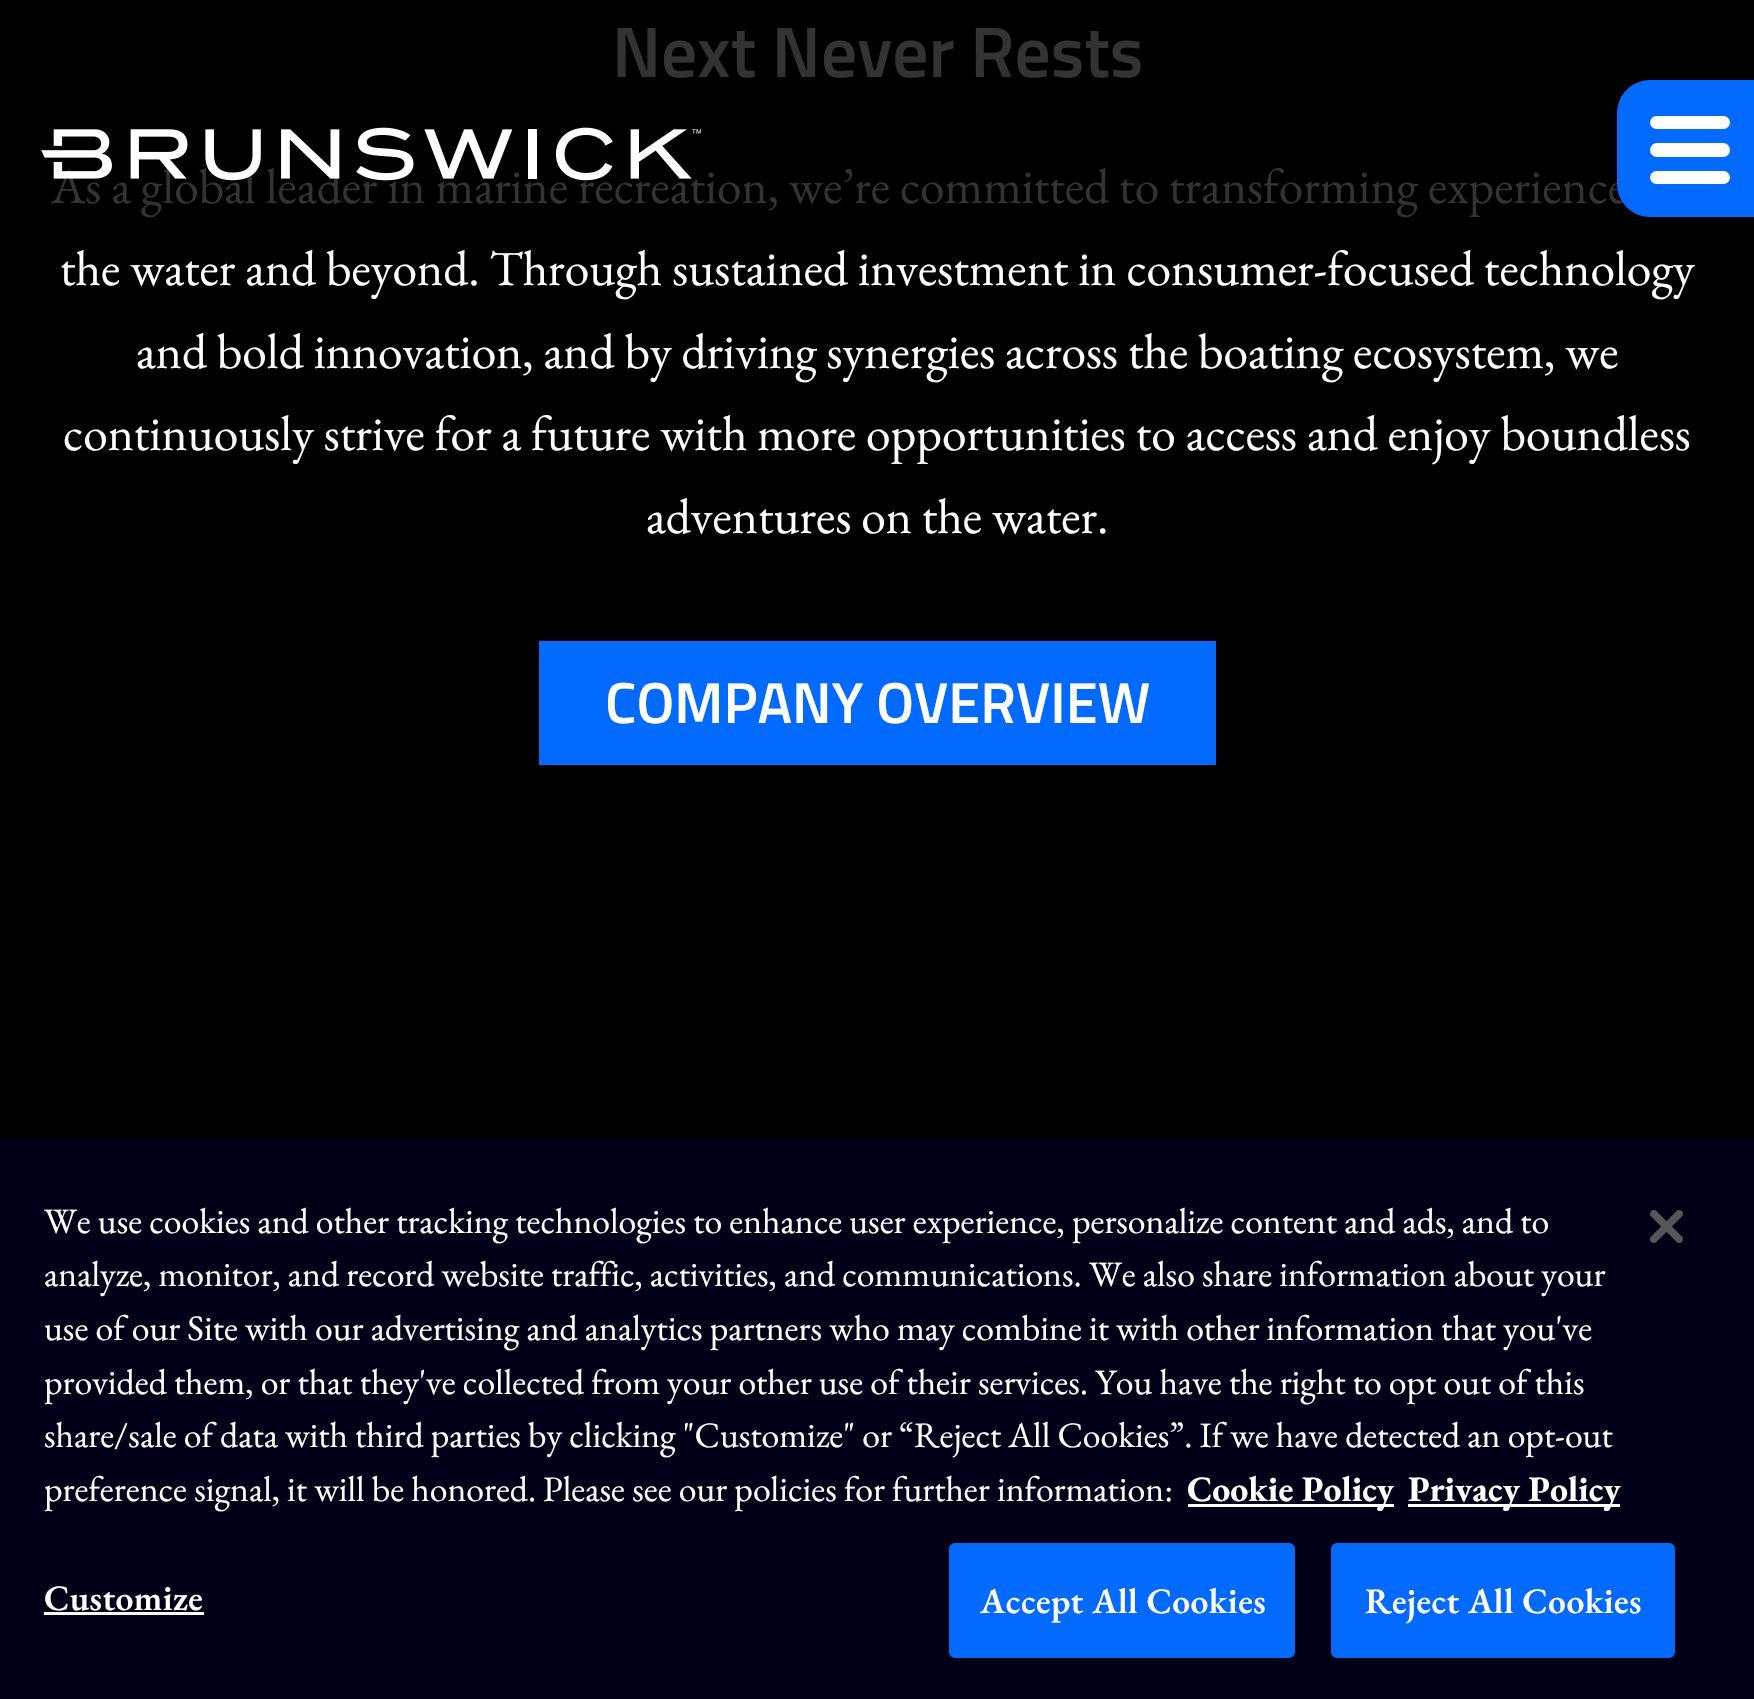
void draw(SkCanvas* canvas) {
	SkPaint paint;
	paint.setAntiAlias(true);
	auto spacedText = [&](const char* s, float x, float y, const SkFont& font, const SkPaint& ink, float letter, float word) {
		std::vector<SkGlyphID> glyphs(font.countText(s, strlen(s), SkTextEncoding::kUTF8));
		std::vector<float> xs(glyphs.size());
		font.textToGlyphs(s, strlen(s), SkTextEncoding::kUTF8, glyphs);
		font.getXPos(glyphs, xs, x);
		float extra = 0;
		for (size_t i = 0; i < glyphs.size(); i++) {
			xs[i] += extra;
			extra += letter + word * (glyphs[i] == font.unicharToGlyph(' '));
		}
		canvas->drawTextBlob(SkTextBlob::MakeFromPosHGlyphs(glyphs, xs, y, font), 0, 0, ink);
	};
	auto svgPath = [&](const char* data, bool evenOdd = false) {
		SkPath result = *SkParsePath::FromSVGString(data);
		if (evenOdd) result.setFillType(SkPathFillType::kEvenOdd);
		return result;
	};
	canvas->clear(0xff000000);
	SkFont f1(fontMgr->matchFamilyStyle("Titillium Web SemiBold", SkFontStyle(600, SkFontStyle::kNormal_Width, SkFontStyle::kUpright_Slant)), 71.5);
	f1.setSubpixel(true);
	paint.setColor(0xff333333);
	canvas->drawString("Next Never Rests", 612, 77, f1, paint);
	SkFont f2(fontMgr->matchFamilyStyle("EB Garamond", SkFontStyle::Normal()), 49.5);
	f2.setSubpixel(true);
	canvas->drawString("As a global leader in marine recreation, we’re committed to transforming experience", 51, 203, f2, paint);
	paint.setColor(0xffffffff);
	canvas->drawString("the water and beyond. Through sustained investment in consumer-focused technology", 60, 285, f2, paint);
	canvas->drawString("and bold innovation, and by driving synergies across the boating ecosystem, we", 136, 368, f2, paint);
	canvas->drawString("continuously strive for a future with more opportunities to access and enjoy boundless", 63, 450, f2, paint);
	canvas->drawString("adventures on the water.", 646, 533, f2, paint);
	paint.setColor(0xff026afe);
	canvas->drawRect(SkRect::MakeXYWH(539, 641, 677, 124), paint);
	SkFont f3(fontMgr->matchFamilyStyle("Titillium Web SemiBold", SkFontStyle(600, SkFontStyle::kNormal_Width, SkFontStyle::kUpright_Slant)), 57.75);
	f3.setSubpixel(true);
	paint.setColor(0xffffffff);
	canvas->drawString("COMPANY OVERVIEW", 605, 723, f3, paint);
	canvas->drawImageRect(SkImages::DeferredFromEncodedData(SkData::MakeFromFileName("img1.png")), SkRect::MakeXYWH(41, 127, 660, 54), SkSamplingOptions());
	paint.setColor(0xff026afe);
	canvas->drawPath(svgPath("M1650 80H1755V217H1650C1632 217 1617 202 1617 184V113C1617 95 1632 80 1650 80Z"), paint);
	paint.setColor(0xffffffff);
	canvas->drawRoundRect(SkRect::MakeXYWH(1650, 116, 80, 13), 6.5, 6.5, paint);
	canvas->drawRoundRect(SkRect::MakeXYWH(1650, 143, 80, 14), 7, 7, paint);
	canvas->drawRoundRect(SkRect::MakeXYWH(1650, 171, 80, 13), 6.5, 6.5, paint);
	paint.setColor(0xff000018);
	canvas->drawRect(SkRect::MakeXYWH(0, 1139, 1754, 560), paint);
	SkFont f4(fontMgr->matchFamilyStyle("EB Garamond", SkFontStyle::Normal()), 35.75);
	f4.setSubpixel(true);
	paint.setColor(0xffffffff);
	canvas->drawString("We use cookies and other tracking technologies to enhance user experience, personalize content and ads, and to", 44, 1233, f4, paint);
	canvas->drawString("analyze, monitor, and record website traffic, activities, and communications. We also share information about your", 44, 1286, f4, paint);
	canvas->drawString("use of our Site with our advertising and analytics partners who may combine it with other information that you've", 44, 1340, f4, paint);
	canvas->drawString("provided them, or that they've collected from your other use of their services. You have the right to opt out of this", 44, 1394, f4, paint);
	canvas->drawString("share/sale of data with third parties by clicking \"Customize\" or “Reject All Cookies”. If we have detected an opt-out", 44, 1447, f4, paint);
	canvas->drawString("preference signal, it will be honored.", 44, 1501, f4, paint);
	canvas->drawString("Please see our policies for further information:", 543, 1501, f4, paint);
	canvas->drawRect(SkRect::MakeXYWH(1188, 1504, 206, 3), paint);
	SkFont f5(fontMgr->matchFamilyStyle("EB Garamond", SkFontStyle::Bold()), 35.75);
	f5.setSubpixel(true);
	canvas->drawString("Cookie Policy", 1187, 1501, f5, paint);
	canvas->drawRect(SkRect::MakeXYWH(1408, 1504, 212, 3), paint);
	canvas->drawString("Privacy Policy", 1408, 1501, f5, paint);
	SkFont f6(fontMgr->matchFamilyStyle("EB Garamond", SkFontStyle(600, SkFontStyle::kNormal_Width, SkFontStyle::kUpright_Slant)), 35.75);
	f6.setSubpixel(true);
	spacedText("Customize", 44, 1610, f6, paint, 0.4, 0);
	canvas->drawRect(SkRect::MakeXYWH(44, 1612, 160, 3), paint);
	paint.setColor(0xff026afe);
	canvas->drawRoundRect(SkRect::MakeXYWH(950.5, 1544.5, 343, 112), 4.5, 4.5, paint);
	paint.setStroke(true);
	paint.setStrokeWidth(3);
	canvas->drawRoundRect(SkRect::MakeXYWH(950.5, 1544.5, 343, 112), 4.5, 4.5, paint);
	paint.setStroke(false);
	paint.setColor(0xffffffff);
	spacedText("Accept All Cookies", 980, 1613, f6, paint, 0.4, 0);
	paint.setColor(0xff026afe);
	canvas->drawRoundRect(SkRect::MakeXYWH(1332.5, 1544.5, 341, 112), 4.5, 4.5, paint);
	paint.setStroke(true);
	canvas->drawRoundRect(SkRect::MakeXYWH(1332.5, 1544.5, 341, 112), 4.5, 4.5, paint);
	paint.setStroke(false);
	paint.setColor(0xffffffff);
	spacedText("Reject All Cookies", 1365, 1613, f6, paint, 0.4, 0);
	canvas->drawImageRect(SkImages::DeferredFromEncodedData(SkData::MakeFromFileName("img2.png")), SkRect::MakeXYWH(1650, 1210, 33, 33), SkSamplingOptions());
}
